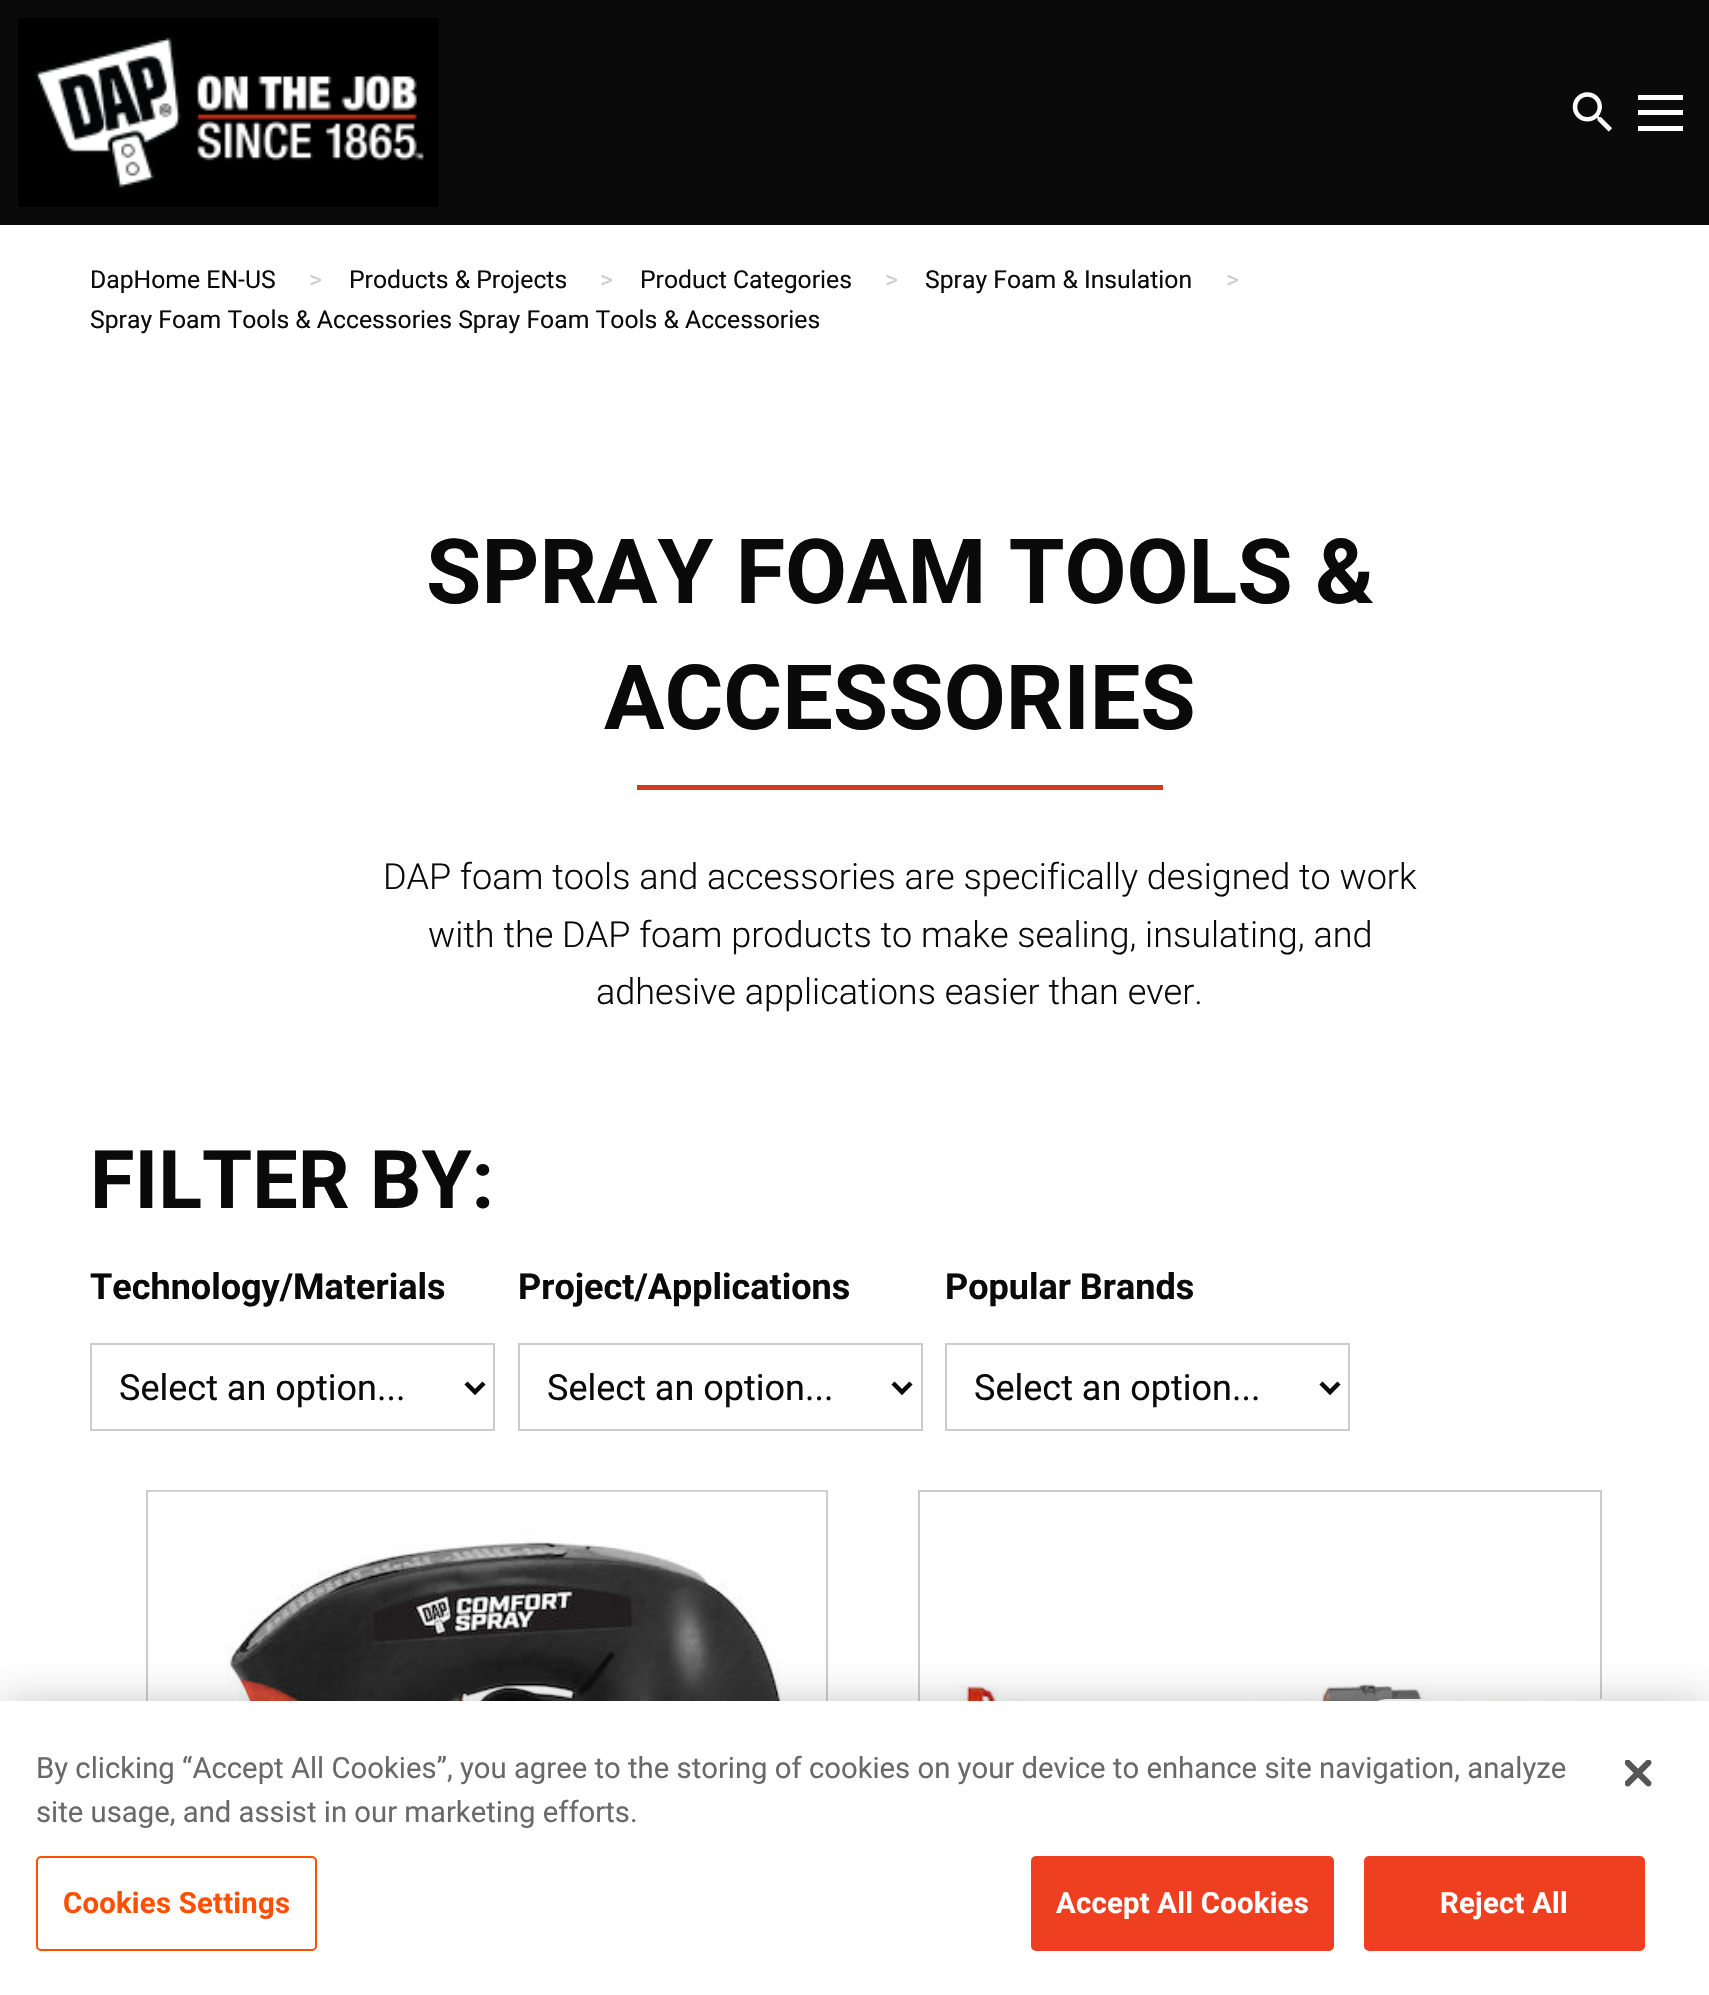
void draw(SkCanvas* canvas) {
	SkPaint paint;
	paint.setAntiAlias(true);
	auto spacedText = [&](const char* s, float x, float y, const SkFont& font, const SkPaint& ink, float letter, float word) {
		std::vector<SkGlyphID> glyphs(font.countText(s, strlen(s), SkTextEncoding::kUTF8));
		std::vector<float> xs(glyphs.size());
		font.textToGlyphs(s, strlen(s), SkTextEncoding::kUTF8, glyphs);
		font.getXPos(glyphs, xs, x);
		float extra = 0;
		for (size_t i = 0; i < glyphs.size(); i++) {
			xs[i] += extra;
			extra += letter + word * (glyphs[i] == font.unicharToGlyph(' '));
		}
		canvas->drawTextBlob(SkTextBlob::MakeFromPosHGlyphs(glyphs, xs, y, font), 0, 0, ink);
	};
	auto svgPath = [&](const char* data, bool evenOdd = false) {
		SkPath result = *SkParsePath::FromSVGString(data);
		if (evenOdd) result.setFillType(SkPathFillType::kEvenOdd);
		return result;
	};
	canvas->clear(0xffffffff);
	paint.setColor(0xff0a0a0a);
	canvas->drawRect(SkRect::MakeXYWH(0, 0, 1709, 225), paint);
	canvas->drawImageRect(SkImages::DeferredFromEncodedData(SkData::MakeFromFileName("img1.png")), SkRect::MakeXYWH(18, 18, 421, 189), SkSamplingOptions());
	canvas->drawImageRect(SkImages::DeferredFromEncodedData(SkData::MakeFromFileName("img2.png")), SkRect::MakeXYWH(1572, 92, 40, 40), SkSamplingOptions());
	paint.setColor(0xfffefefe);
	canvas->drawRect(SkRect::MakeXYWH(1638, 126, 45, 5), paint);
	canvas->drawRect(SkRect::MakeXYWH(1638, 110, 45, 5), paint);
	canvas->drawRect(SkRect::MakeXYWH(1638, 95, 45, 5), paint);
	SkFont f1(fontMgr->matchFamilyStyle("Roboto", SkFontStyle::Normal()), 24.75);
	f1.setSubpixel(true);
	paint.setColor(0xff0a0a0a);
	canvas->drawString("DapHome EN-US", 90, 288, f1, paint);
	paint.setColor(0xffcccccc);
	canvas->drawString(">", 309, 288, f1, paint);
	paint.setColor(0xff0a0a0a);
	canvas->drawString("Products & Projects", 349, 288, f1, paint);
	paint.setColor(0xffcccccc);
	canvas->drawString(">", 600, 288, f1, paint);
	paint.setColor(0xff0a0a0a);
	canvas->drawString("Product Categories", 640, 288, f1, paint);
	paint.setColor(0xffcccccc);
	canvas->drawString(">", 885, 288, f1, paint);
	paint.setColor(0xff0a0a0a);
	canvas->drawString("Spray Foam & Insulation", 925, 288, f1, paint);
	paint.setColor(0xffcccccc);
	canvas->drawString(">", 1226, 288, f1, paint);
	paint.setColor(0xff0a0a0a);
	canvas->drawString("Spray Foam Tools & Accessories Spray Foam Tools & Accessories", 90, 328, f1, paint);
	SkFont f2(fontMgr->matchFamilyStyle("Roboto", SkFontStyle::Bold()), 90);
	f2.setSubpixel(true);
	canvas->drawString("SPRAY FOAM TOOLS &", 426, 603, f2, paint);
	canvas->drawString("ACCESSORIES", 604, 729, f2, paint);
	paint.setColor(0xffd6391d);
	canvas->drawRect(SkRect::MakeXYWH(637, 785, 526, 5), paint);
	SkFont f3(fontMgr->matchFamilyStyle("Roboto", SkFontStyle(300, SkFontStyle::kNormal_Width, SkFontStyle::kUpright_Slant)), 36);
	f3.setSubpixel(true);
	paint.setColor(0xff0a0a0a);
	canvas->drawString("DAP foam tools and accessories are specifically designed to work", 383, 889, f3, paint);
	canvas->drawString("with the DAP foam products to make sealing, insulating, and", 428, 947, f3, paint);
	canvas->drawString("adhesive applications easier than ever.", 596, 1004, f3, paint);
	SkFont f4(fontMgr->matchFamilyStyle("Roboto", SkFontStyle::Bold()), 81);
	f4.setSubpixel(true);
	canvas->drawString("FILTER BY:", 90, 1208, f4, paint);
	SkFont f5(fontMgr->matchFamilyStyle("Roboto", SkFontStyle::Bold()), 36);
	f5.setSubpixel(true);
	canvas->drawString("Technology/Materials", 90, 1299, f5, paint);
	paint.setStroke(true);
	paint.setStrokeWidth(2);
	paint.setColor(0xffcccccc);
	canvas->drawRect(SkRect::MakeXYWH(91, 1344, 403, 86), paint);
	paint.setStrokeWidth(4.5);
	paint.setColor(0xff0a0a0a);
	canvas->drawPath(svgPath("M466 1383L475 1392L484 1383"), paint);
	SkFont f6(fontMgr->matchFamilyStyle("Roboto", SkFontStyle::Normal()), 36);
	f6.setSubpixel(true);
	paint.setStroke(false);
	canvas->drawString("Select an option...", 119, 1400, f6, paint);
	canvas->drawString("Project/Applications", 518, 1299, f5, paint);
	paint.setStroke(true);
	paint.setStrokeWidth(2);
	paint.setColor(0xffcccccc);
	canvas->drawRect(SkRect::MakeXYWH(519, 1344, 403, 86), paint);
	paint.setStrokeWidth(4.5);
	paint.setColor(0xff0a0a0a);
	canvas->drawPath(svgPath("M893 1383L902 1392L911 1383"), paint);
	paint.setStroke(false);
	canvas->drawString("Select an option...", 547, 1400, f6, paint);
	canvas->drawString("Popular Brands", 945, 1299, f5, paint);
	paint.setStroke(true);
	paint.setStrokeWidth(2);
	paint.setColor(0xffcccccc);
	canvas->drawRect(SkRect::MakeXYWH(946, 1344, 403, 86), paint);
	paint.setStrokeWidth(4.5);
	paint.setColor(0xff0a0a0a);
	canvas->drawPath(svgPath("M1321 1383L1330 1392L1339 1383"), paint);
	paint.setStroke(false);
	canvas->drawString("Select an option...", 974, 1400, f6, paint);
	paint.setStroke(true);
	paint.setStrokeWidth(2);
	paint.setColor(0xffcccccc);
	canvas->drawRect(SkRect::MakeXYWH(147, 1491, 680, 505), paint);
	canvas->drawImageRect(SkImages::DeferredFromEncodedData(SkData::MakeFromFileName("img3.png")), SkRect::MakeXYWH(148, 1491, 678, 210), SkSamplingOptions());
	canvas->drawRect(SkRect::MakeXYWH(919, 1491, 682, 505), paint);
	canvas->drawImageRect(SkImages::DeferredFromEncodedData(SkData::MakeFromFileName("img4.png")), SkRect::MakeXYWH(959, 1683, 623, 18), SkSamplingOptions());
	canvas->drawImageRect(SkImages::DeferredFromEncodedData(SkData::MakeFromFileName("img5.png")), SkRect::MakeXYWH(1377, 1699, 265, 2), SkSamplingOptions());
	paint.setStroke(false);
	paint.setColor(0x33000000);
	paint.setMaskFilter(SkMaskFilter::MakeBlur(kNormal_SkBlurStyle, 20));
	canvas->drawRect(SkRect::MakeXYWH(0, 1701, 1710, 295), paint);
	paint.setMaskFilter(nullptr);
	paint.setColor(0xffffffff);
	canvas->drawRect(SkRect::MakeXYWH(0, 1701, 1709, 294), paint);
	SkFont f7(fontMgr->matchFamilyStyle("Roboto", SkFontStyle::Normal()), 29.27);
	f7.setSubpixel(true);
	paint.setColor(0xff696969);
	canvas->drawString("By clicking “Accept All Cookies”, you agree to the storing of cookies on your device to enhance site navigation, analyze", 36, 1778, f7, paint);
	canvas->drawString("site usage, and assist in our marketing efforts.", 36, 1822, f7, paint);
	paint.setStroke(true);
	paint.setColor(0xfffe5000);
	canvas->drawRoundRect(SkRect::MakeXYWH(37, 1857, 279, 93), 4, 4, paint);
	SkFont f8(fontMgr->matchFamilyStyle("Roboto", SkFontStyle::Bold()), 29.27);
	f8.setSubpixel(true);
	paint.setStroke(false);
	spacedText("Cookies Settings", 63, 1913, f8, paint, 0.25, 0);
	paint.setColor(0xffee4021);
	canvas->drawRoundRect(SkRect::MakeXYWH(1032, 1857, 301, 93), 4, 4, paint);
	paint.setStroke(true);
	canvas->drawRoundRect(SkRect::MakeXYWH(1032, 1857, 301, 93), 4, 4, paint);
	paint.setStroke(false);
	paint.setColor(0xffffffff);
	spacedText("Accept All Cookies", 1056, 1913, f8, paint, 0.25, 0);
	paint.setColor(0xffee4021);
	canvas->drawRoundRect(SkRect::MakeXYWH(1365, 1857, 279, 93), 4, 4, paint);
	paint.setStroke(true);
	canvas->drawRoundRect(SkRect::MakeXYWH(1365, 1857, 279, 93), 4, 4, paint);
	paint.setStroke(false);
	paint.setColor(0xffffffff);
	spacedText("Reject All", 1440, 1913, f8, paint, 0.25, 0);
	canvas->drawImageRect(SkImages::DeferredFromEncodedData(SkData::MakeFromFileName("img6.png")), SkRect::MakeXYWH(1625, 1760, 27, 27), SkSamplingOptions());
}
